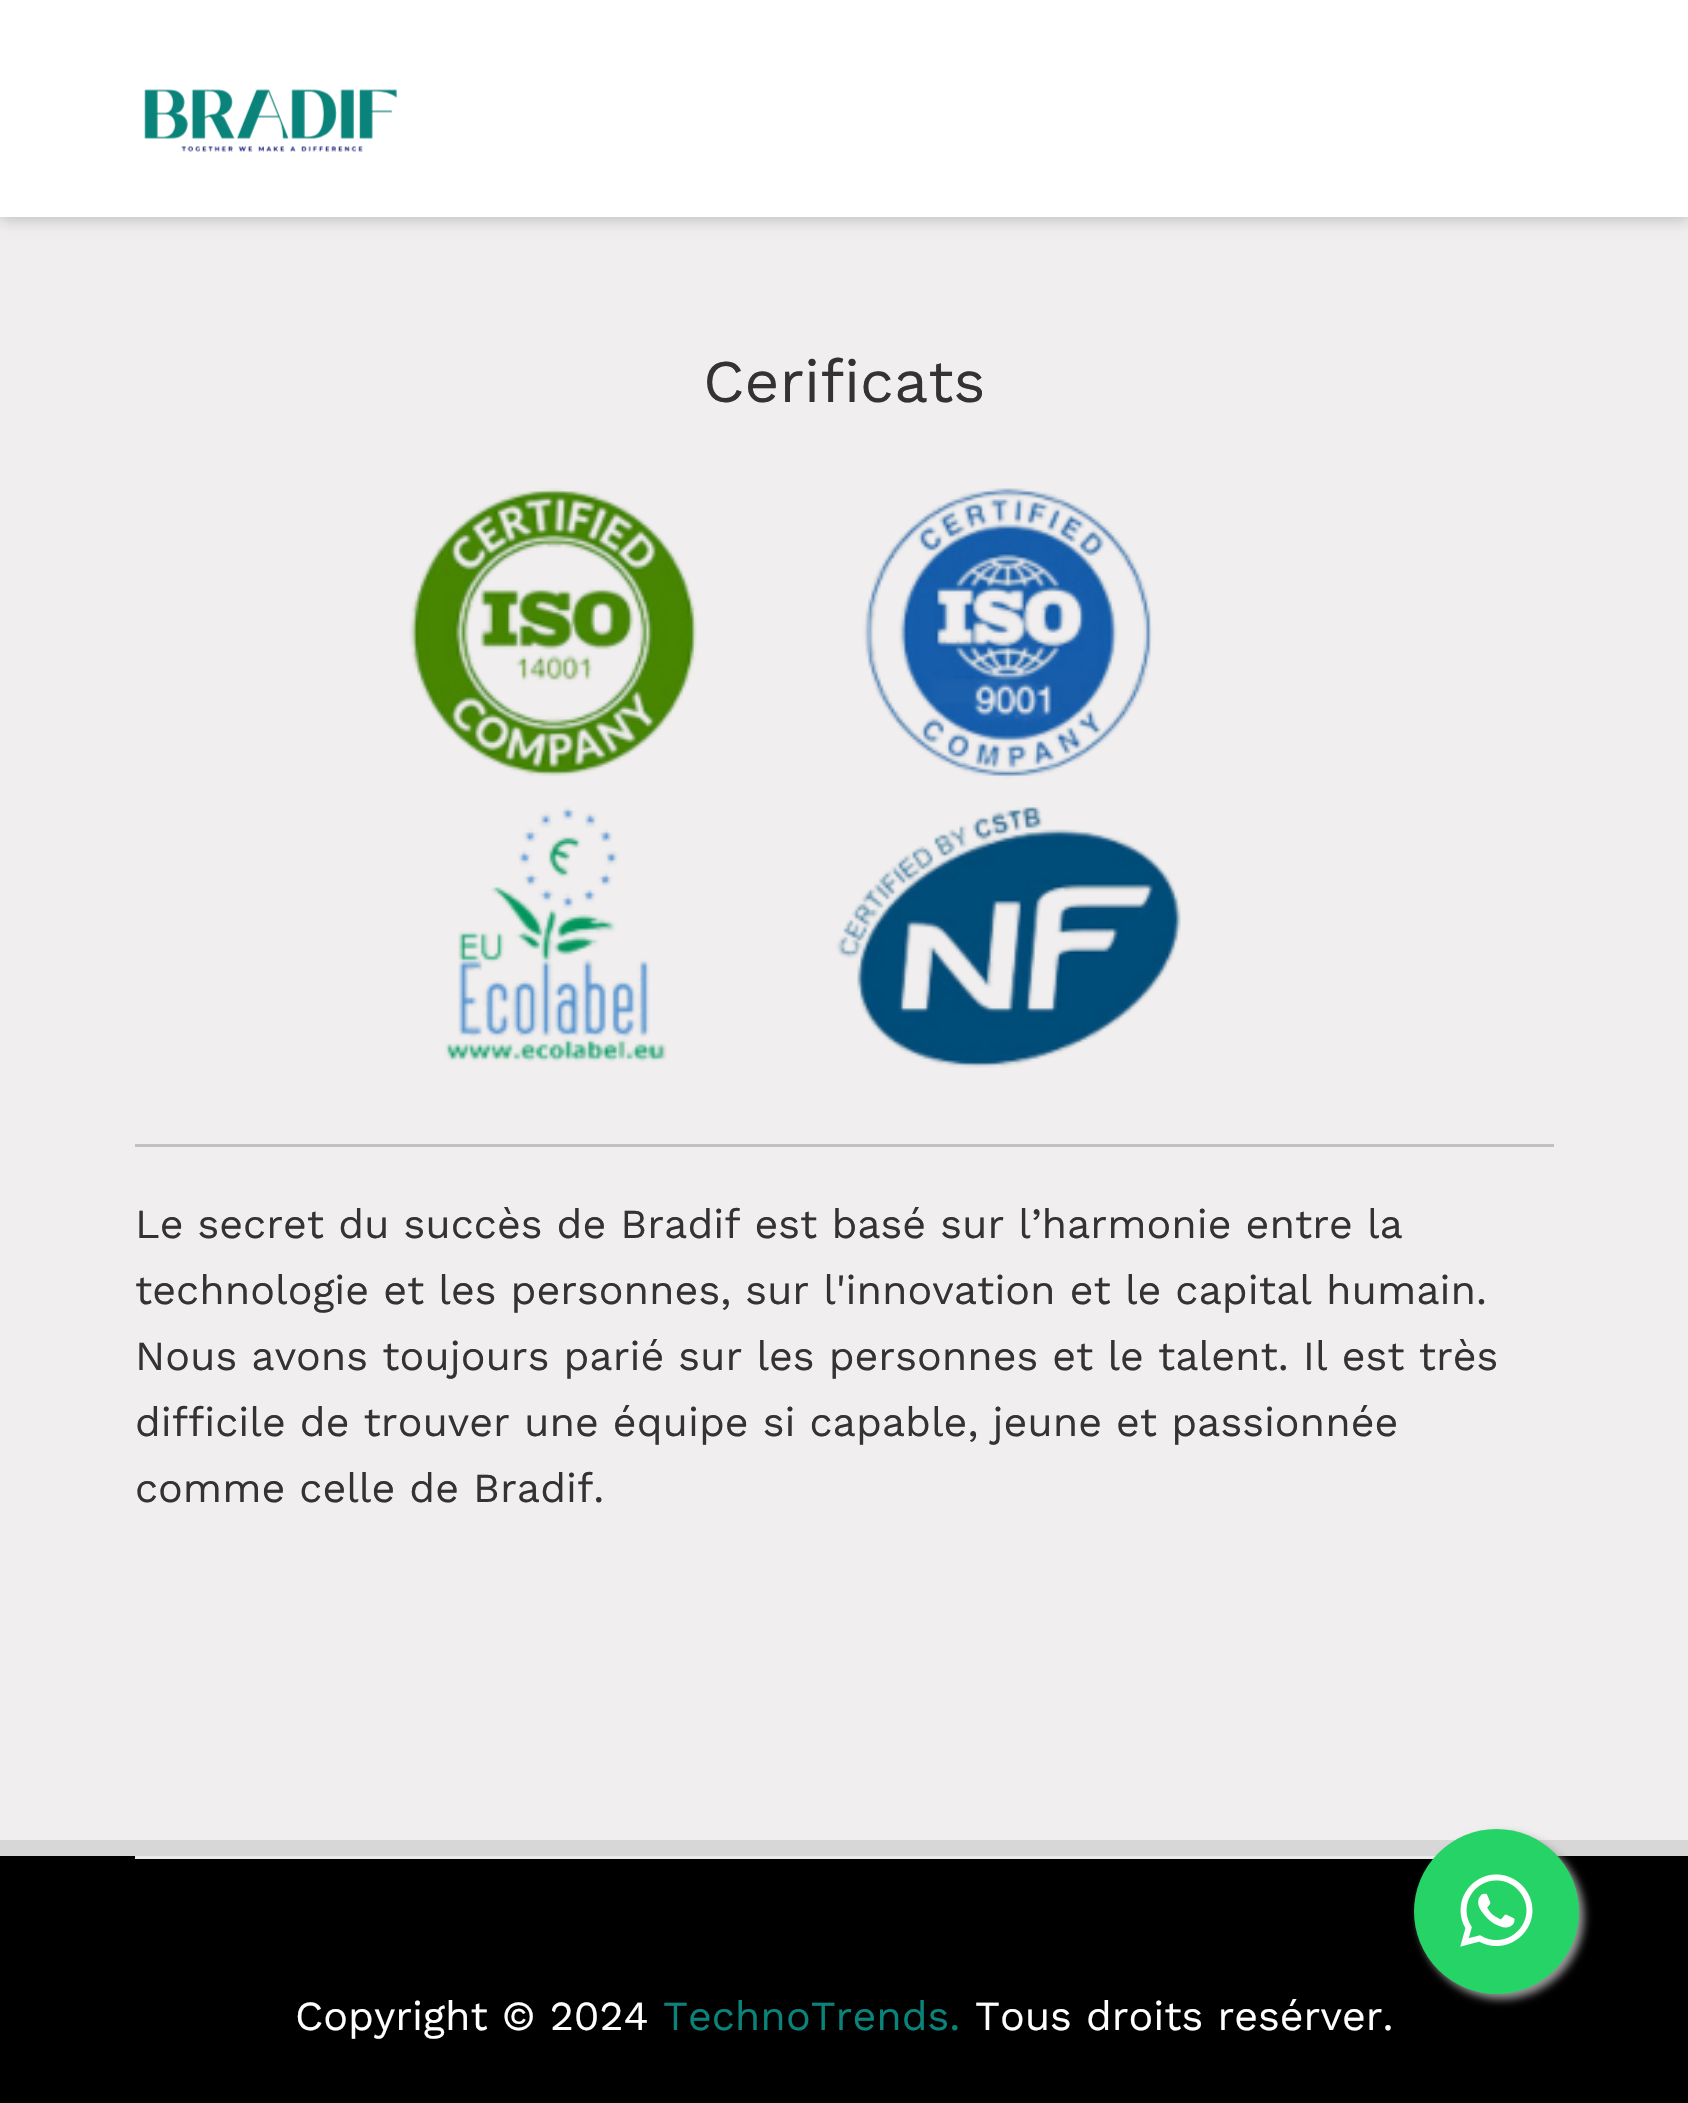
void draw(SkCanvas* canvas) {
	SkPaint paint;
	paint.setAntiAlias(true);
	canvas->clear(0xfff0eeee);
	paint.setColor(0x33000000);
	paint.setMaskFilter(SkMaskFilter::MakeBlur(kNormal_SkBlurStyle, 7));
	canvas->drawRect(SkRect::MakeXYWH(0, 3, 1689, 217), paint);
	paint.setMaskFilter(nullptr);
	paint.setColor(0xffffffff);
	canvas->drawRect(SkRect::MakeXYWH(0, 0, 1688, 217), paint);
	canvas->drawImageRect(SkImages::DeferredFromEncodedData(SkData::MakeFromFileName("img1.png")), SkRect::MakeXYWH(144, 89, 253, 63), SkSamplingOptions());
	paint.setColor(0xffd7d7d7);
	canvas->drawRect(SkRect::MakeXYWH(0, 1840, 1688, 16), paint);
	SkFont f1(fontMgr->matchFamilyStyle("Work Sans", SkFontStyle::Normal()), 60.5);
	f1.setSubpixel(true);
	paint.setColor(0xff333333);
	canvas->drawString("Cerificats", 703, 402, f1, paint);
	canvas->drawImageRect(SkImages::DeferredFromEncodedData(SkData::MakeFromFileName("img2.png")), SkRect::MakeXYWH(409, 488, 772, 580), SkSamplingOptions());
	paint.setColor(0xffc1bfbf);
	canvas->drawRect(SkRect::MakeXYWH(135, 1144, 1419, 3), paint);
	SkFont f2(fontMgr->matchFamilyStyle("Work Sans", SkFontStyle::Normal()), 41.25);
	f2.setSubpixel(true);
	paint.setColor(0xff333333);
	canvas->drawString("Le secret du succès de Bradif est basé sur l’harmonie entre la", 135, 1238, f2, paint);
	canvas->drawString("technologie et les personnes, sur l'innovation et le capital humain.", 135, 1304, f2, paint);
	canvas->drawString("Nous avons toujours parié sur les personnes et le talent. Il est très", 135, 1370, f2, paint);
	canvas->drawString("difficile de trouver une équipe si capable, jeune et passionnée", 135, 1436, f2, paint);
	canvas->drawString("comme celle de Bradif.", 135, 1502, f2, paint);
	paint.setColor(0xff000000);
	canvas->drawRect(SkRect::MakeXYWH(0, 1856, 1688, 247), paint);
	paint.setColor(0xffebebeb);
	canvas->drawRect(SkRect::MakeXYWH(135, 1856, 1301, 3), paint);
	paint.setColor(0xffffffff);
	canvas->drawString("Copyright © 2024", 295, 2030, f2, paint);
	paint.setColor(0xff0a847b);
	canvas->drawString("TechnoTrends.", 663, 2030, f2, paint);
	paint.setColor(0xffffffff);
	canvas->drawString("Tous droits resérver.", 975, 2030, f2, paint);
	paint.setColor(0xff999999);
	paint.setMaskFilter(SkMaskFilter::MakeBlur(kNormal_SkBlurStyle, 4));
	canvas->drawRoundRect(SkRect::MakeXYWH(1419, 1834, 165, 165), 82.5, 82.5, paint);
	paint.setMaskFilter(nullptr);
	paint.setColor(0xff25d366);
	canvas->drawCircle(1496.5, 1911.5, 82.5, paint);
	canvas->drawImageRect(SkImages::DeferredFromEncodedData(SkData::MakeFromFileName("img3.png")), SkRect::MakeXYWH(1460, 1874, 73, 73), SkSamplingOptions());
}
